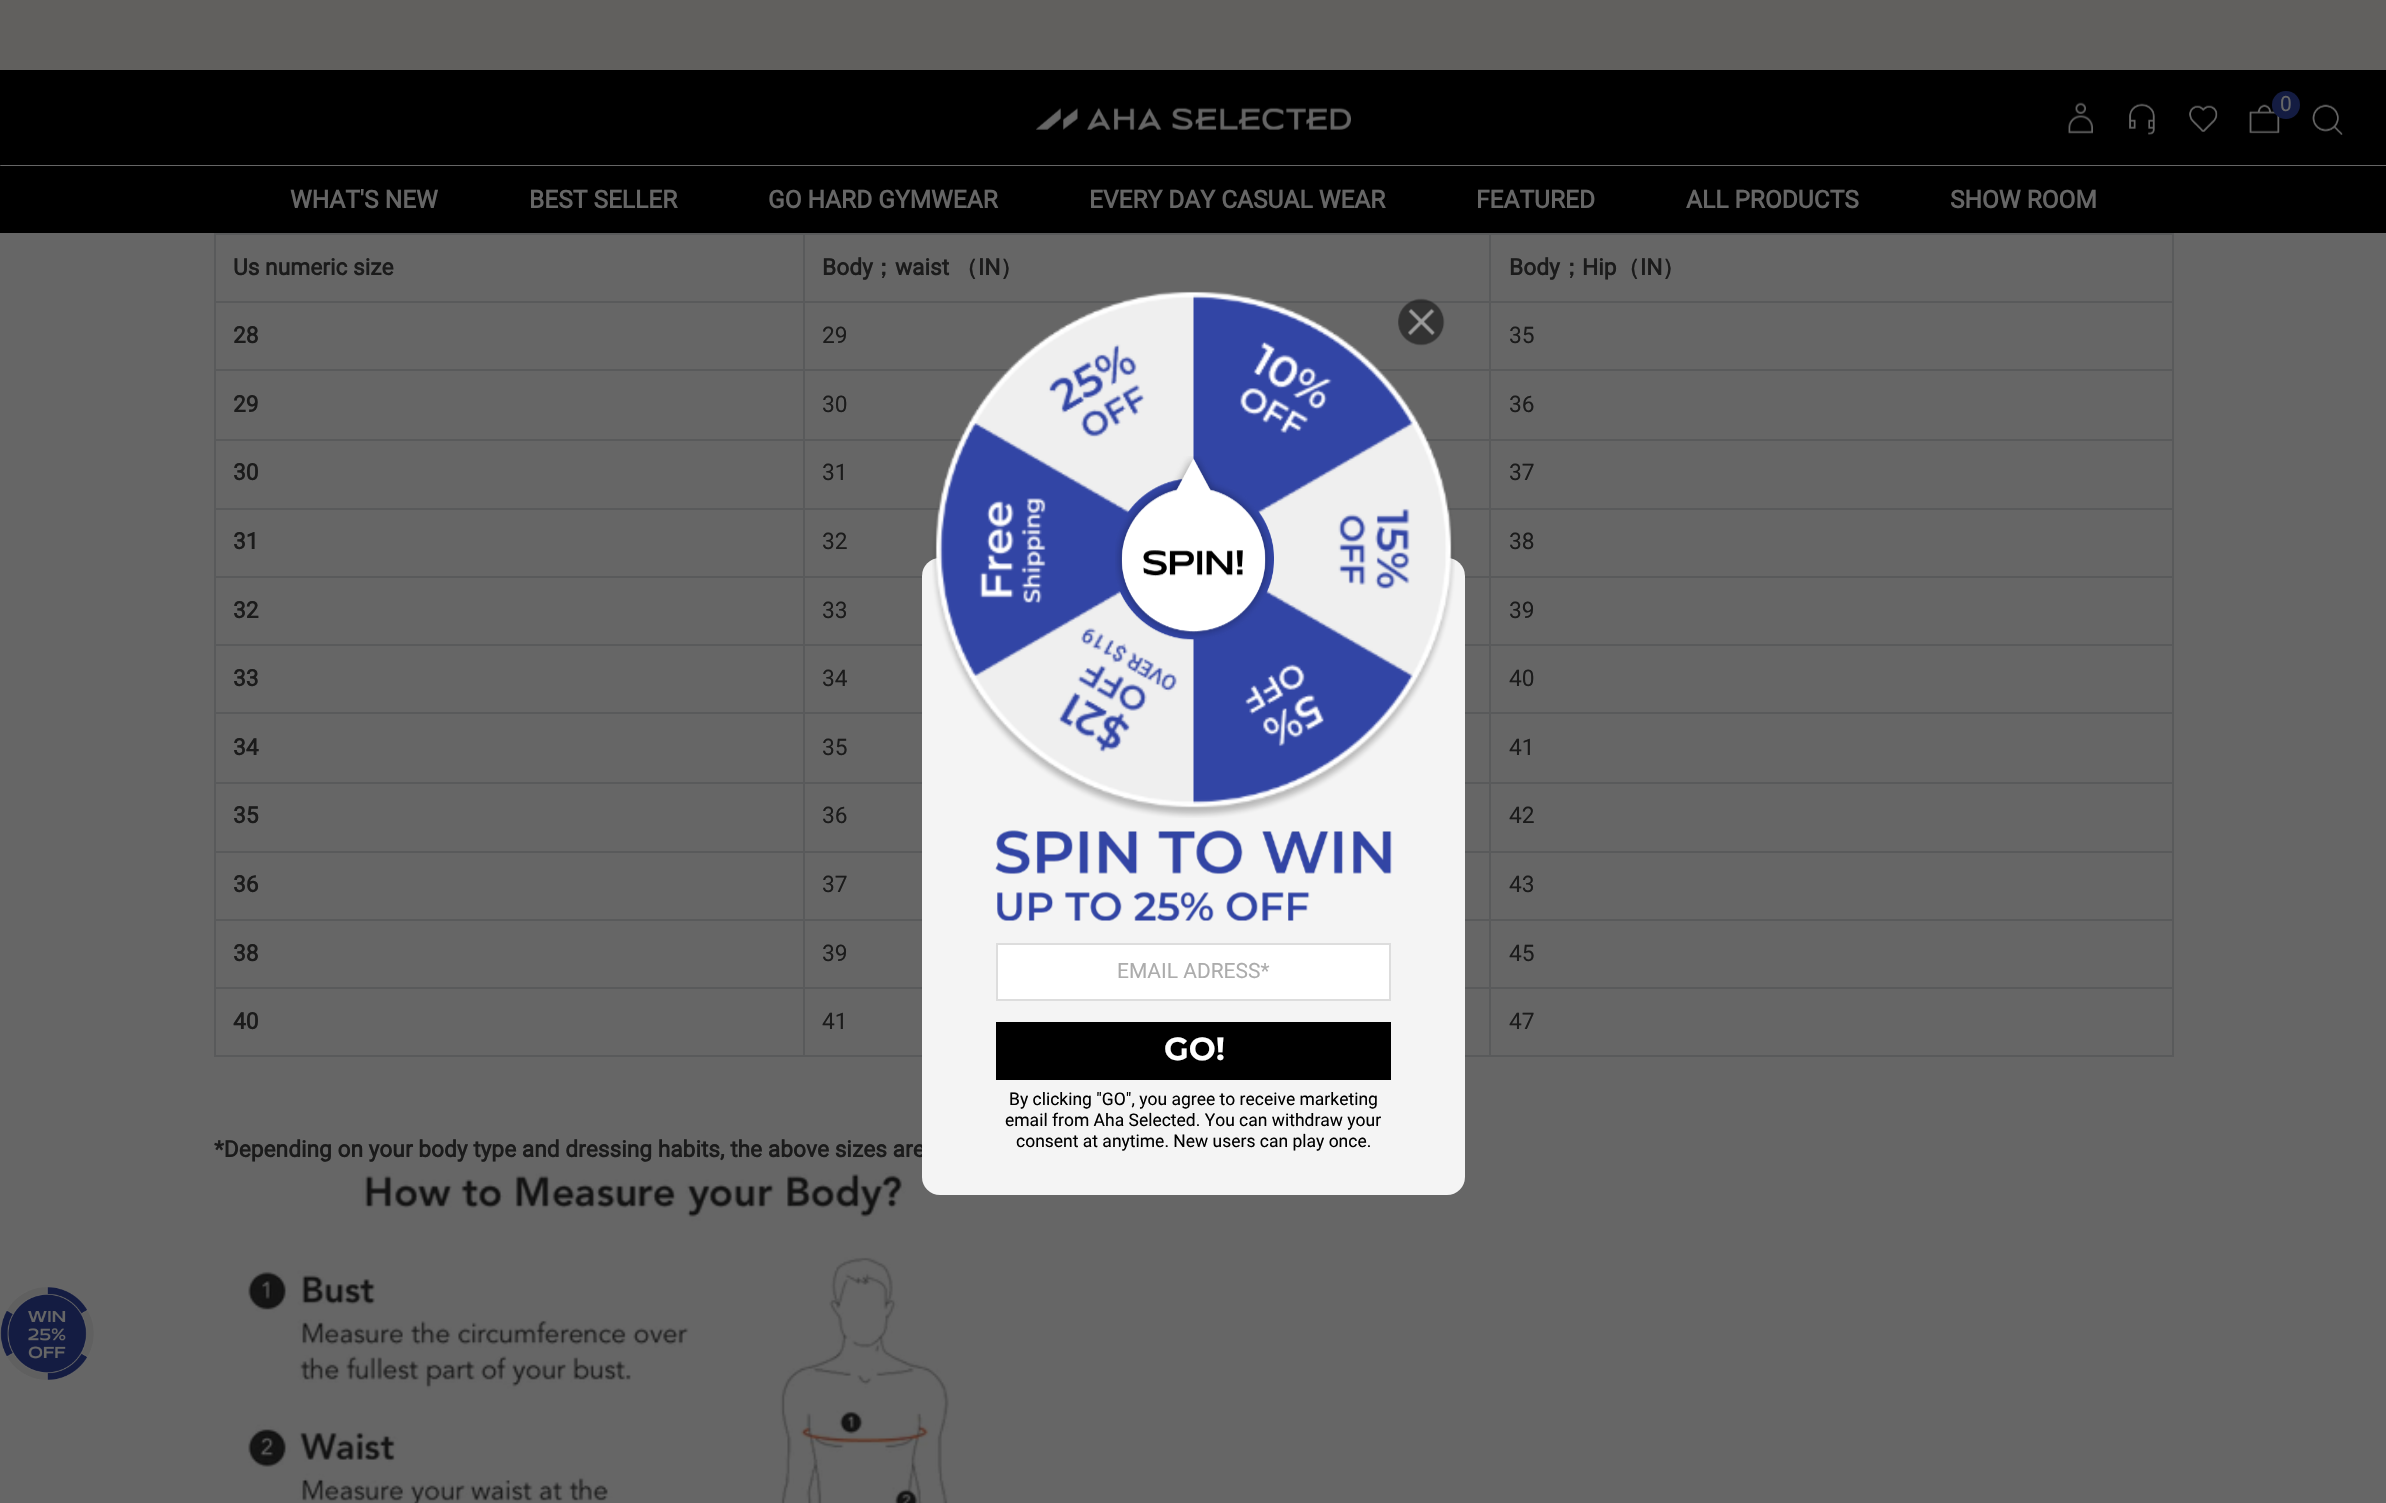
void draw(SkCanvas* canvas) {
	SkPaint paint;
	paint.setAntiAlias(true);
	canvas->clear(0xff666666);
	paint.setColor(0xff61605e);
	canvas->drawRect(SkRect::MakeXYWH(0, 0, 2386, 70), paint);
	paint.setColor(0xff000000);
	canvas->drawRect(SkRect::MakeXYWH(0, 70, 2386, 96), paint);
	canvas->drawImageRect(SkImages::DeferredFromEncodedData(SkData::MakeFromFileName("img1.png")), SkRect::MakeXYWH(1036, 107, 315, 23), SkSamplingOptions());
	canvas->drawImageRect(SkImages::DeferredFromEncodedData(SkData::MakeFromFileName("img2.png")), SkRect::MakeXYWH(2068, 102, 25, 32), SkSamplingOptions());
	canvas->drawImageRect(SkImages::DeferredFromEncodedData(SkData::MakeFromFileName("img3.png")), SkRect::MakeXYWH(2129, 103, 26, 32), SkSamplingOptions());
	canvas->drawImageRect(SkImages::DeferredFromEncodedData(SkData::MakeFromFileName("img4.png")), SkRect::MakeXYWH(2189, 105, 29, 27), SkSamplingOptions());
	canvas->drawImageRect(SkImages::DeferredFromEncodedData(SkData::MakeFromFileName("img5.png")), SkRect::MakeXYWH(2249, 104, 31, 30), SkSamplingOptions());
	paint.setColor(0xff141c42);
	canvas->drawCircle(2286, 105, 14, paint);
	SkFont f1(fontMgr->matchFamilyStyle("Roboto", SkFontStyle::Normal()), 21);
	f1.setSubpixel(true);
	paint.setColor(0xff666666);
	canvas->drawString("0", 2280, 111, f1, paint);
	canvas->drawImageRect(SkImages::DeferredFromEncodedData(SkData::MakeFromFileName("img6.png")), SkRect::MakeXYWH(2312, 104, 31, 31), SkSamplingOptions());
	canvas->drawRoundRect(SkRect::MakeXYWH(0, 165, 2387, 2), 1, 1, paint);
	paint.setColor(0xff000000);
	canvas->drawRect(SkRect::MakeXYWH(0, 166, 2386, 67), paint);
	SkFont f2(fontMgr->matchFamilyStyle("Roboto", SkFontStyle::Bold()), 24.5);
	f2.setSubpixel(true);
	paint.setColor(0xff666666);
	canvas->drawString("WHAT'S NEW", 290, 208, f2, paint);
	canvas->drawString("BEST SELLER", 529, 208, f2, paint);
	canvas->drawString("GO HARD GYMWEAR", 768, 208, f2, paint);
	canvas->drawString("EVERY DAY CASUAL WEAR", 1089, 208, f2, paint);
	canvas->drawString("FEATURED", 1476, 208, f2, paint);
	canvas->drawString("ALL PRODUCTS", 1686, 208, f2, paint);
	canvas->drawString("SHOW ROOM", 1950, 208, f2, paint);
	paint.setColor(0xff595a5b);
	canvas->drawRect(SkRect::MakeXYWH(1489, 233, 685, 2), paint);
	canvas->drawRect(SkRect::MakeXYWH(1489, 301, 685, 2), paint);
	canvas->drawRect(SkRect::MakeXYWH(1489, 369, 685, 2), paint);
	canvas->drawRect(SkRect::MakeXYWH(1489, 439, 685, 2), paint);
	canvas->drawRect(SkRect::MakeXYWH(1489, 508, 685, 2), paint);
	canvas->drawRect(SkRect::MakeXYWH(1489, 576, 685, 2), paint);
	canvas->drawRect(SkRect::MakeXYWH(1489, 644, 685, 2), paint);
	canvas->drawRect(SkRect::MakeXYWH(1489, 712, 685, 2), paint);
	canvas->drawRect(SkRect::MakeXYWH(1489, 782, 685, 2), paint);
	canvas->drawRect(SkRect::MakeXYWH(1489, 851, 685, 2), paint);
	canvas->drawRect(SkRect::MakeXYWH(1489, 919, 685, 2), paint);
	canvas->drawRect(SkRect::MakeXYWH(1489, 987, 685, 2), paint);
	canvas->drawRect(SkRect::MakeXYWH(2172, 987, 2, 70), paint);
	canvas->drawRect(SkRect::MakeXYWH(1489, 1055, 685, 2), paint);
	canvas->drawRect(SkRect::MakeXYWH(1489, 987, 2, 70), paint);
	canvas->drawRect(SkRect::MakeXYWH(803, 987, 688, 2), paint);
	canvas->drawRect(SkRect::MakeXYWH(1489, 919, 2, 70), paint);
	canvas->drawRect(SkRect::MakeXYWH(803, 919, 688, 2), paint);
	canvas->drawRect(SkRect::MakeXYWH(1489, 851, 2, 70), paint);
	canvas->drawRect(SkRect::MakeXYWH(803, 851, 688, 2), paint);
	canvas->drawRect(SkRect::MakeXYWH(1489, 782, 2, 70), paint);
	canvas->drawRect(SkRect::MakeXYWH(803, 782, 688, 2), paint);
	canvas->drawRect(SkRect::MakeXYWH(1489, 712, 2, 72), paint);
	canvas->drawRect(SkRect::MakeXYWH(803, 712, 688, 2), paint);
	canvas->drawRect(SkRect::MakeXYWH(1489, 644, 2, 70), paint);
	canvas->drawRect(SkRect::MakeXYWH(803, 644, 688, 2), paint);
	canvas->drawRect(SkRect::MakeXYWH(1489, 576, 2, 70), paint);
	canvas->drawRect(SkRect::MakeXYWH(803, 576, 688, 2), paint);
	canvas->drawRect(SkRect::MakeXYWH(1489, 508, 2, 70), paint);
	canvas->drawRect(SkRect::MakeXYWH(803, 508, 688, 2), paint);
	canvas->drawRect(SkRect::MakeXYWH(1489, 439, 2, 70), paint);
	canvas->drawRect(SkRect::MakeXYWH(803, 439, 688, 2), paint);
	canvas->drawRect(SkRect::MakeXYWH(1489, 369, 2, 72), paint);
	canvas->drawRect(SkRect::MakeXYWH(803, 369, 688, 2), paint);
	canvas->drawRect(SkRect::MakeXYWH(1489, 301, 2, 70), paint);
	canvas->drawRect(SkRect::MakeXYWH(803, 301, 688, 2), paint);
	canvas->drawRect(SkRect::MakeXYWH(1489, 233, 2, 70), paint);
	canvas->drawRect(SkRect::MakeXYWH(803, 233, 688, 2), paint);
	canvas->drawRect(SkRect::MakeXYWH(803, 1055, 688, 2), paint);
	canvas->drawRect(SkRect::MakeXYWH(803, 987, 2, 70), paint);
	canvas->drawRect(SkRect::MakeXYWH(214, 987, 591, 2), paint);
	canvas->drawRect(SkRect::MakeXYWH(803, 919, 2, 70), paint);
	canvas->drawRect(SkRect::MakeXYWH(214, 919, 591, 2), paint);
	canvas->drawRect(SkRect::MakeXYWH(803, 851, 2, 70), paint);
	canvas->drawRect(SkRect::MakeXYWH(214, 851, 591, 2), paint);
	canvas->drawRect(SkRect::MakeXYWH(803, 782, 2, 70), paint);
	canvas->drawRect(SkRect::MakeXYWH(214, 782, 591, 2), paint);
	canvas->drawRect(SkRect::MakeXYWH(803, 712, 2, 72), paint);
	canvas->drawRect(SkRect::MakeXYWH(214, 712, 591, 2), paint);
	canvas->drawRect(SkRect::MakeXYWH(803, 644, 2, 70), paint);
	canvas->drawRect(SkRect::MakeXYWH(214, 644, 591, 2), paint);
	canvas->drawRect(SkRect::MakeXYWH(803, 576, 2, 70), paint);
	canvas->drawRect(SkRect::MakeXYWH(214, 576, 591, 2), paint);
	canvas->drawRect(SkRect::MakeXYWH(803, 508, 2, 70), paint);
	canvas->drawRect(SkRect::MakeXYWH(214, 508, 591, 2), paint);
	canvas->drawRect(SkRect::MakeXYWH(803, 439, 2, 70), paint);
	canvas->drawRect(SkRect::MakeXYWH(214, 439, 591, 2), paint);
	canvas->drawRect(SkRect::MakeXYWH(803, 369, 2, 72), paint);
	canvas->drawRect(SkRect::MakeXYWH(214, 369, 591, 2), paint);
	canvas->drawRect(SkRect::MakeXYWH(803, 301, 2, 70), paint);
	canvas->drawRect(SkRect::MakeXYWH(214, 301, 591, 2), paint);
	canvas->drawRect(SkRect::MakeXYWH(803, 233, 2, 70), paint);
	canvas->drawRect(SkRect::MakeXYWH(214, 233, 591, 2), paint);
	canvas->drawRect(SkRect::MakeXYWH(214, 1055, 591, 2), paint);
	canvas->drawRect(SkRect::MakeXYWH(214, 987, 2, 70), paint);
	canvas->drawRect(SkRect::MakeXYWH(214, 919, 2, 70), paint);
	canvas->drawRect(SkRect::MakeXYWH(214, 851, 2, 70), paint);
	canvas->drawRect(SkRect::MakeXYWH(214, 782, 2, 70), paint);
	canvas->drawRect(SkRect::MakeXYWH(214, 712, 2, 72), paint);
	canvas->drawRect(SkRect::MakeXYWH(214, 644, 2, 70), paint);
	canvas->drawRect(SkRect::MakeXYWH(214, 576, 2, 70), paint);
	canvas->drawRect(SkRect::MakeXYWH(214, 508, 2, 70), paint);
	canvas->drawRect(SkRect::MakeXYWH(214, 439, 2, 70), paint);
	canvas->drawRect(SkRect::MakeXYWH(214, 369, 2, 72), paint);
	canvas->drawRect(SkRect::MakeXYWH(214, 301, 2, 70), paint);
	canvas->drawRect(SkRect::MakeXYWH(214, 233, 2, 70), paint);
	SkFont f3(fontMgr->matchFamilyStyle("Roboto", SkFontStyle::Bold()), 22.75);
	f3.setSubpixel(true);
	paint.setColor(0xff1b1b1b);
	canvas->drawString("Us numeric size", 233, 275, f3, paint);
	canvas->drawString("Body", 822, 275, f3, paint);
	SkFont f4(fontMgr->matchFamilyStyle("WenQuanYi Zen Hei", SkFontStyle::Bold()), 22.75);
	f4.setSubpixel(true);
	canvas->drawString("；", 872, 275, f4, paint);
	canvas->drawString("waist", 895, 275, f3, paint);
	canvas->drawString("（", 955, 275, f4, paint);
	canvas->drawString("IN", 978, 275, f3, paint);
	canvas->drawString("）", 1000, 275, f4, paint);
	paint.setColor(0xff595a5b);
	canvas->drawRect(SkRect::MakeXYWH(2172, 919, 2, 70), paint);
	canvas->drawRect(SkRect::MakeXYWH(2172, 851, 2, 70), paint);
	canvas->drawRect(SkRect::MakeXYWH(2172, 782, 2, 70), paint);
	canvas->drawRect(SkRect::MakeXYWH(2172, 712, 2, 72), paint);
	canvas->drawRect(SkRect::MakeXYWH(2172, 644, 2, 70), paint);
	canvas->drawRect(SkRect::MakeXYWH(2172, 576, 2, 70), paint);
	canvas->drawRect(SkRect::MakeXYWH(2172, 508, 2, 70), paint);
	canvas->drawRect(SkRect::MakeXYWH(2172, 439, 2, 70), paint);
	canvas->drawRect(SkRect::MakeXYWH(2172, 369, 2, 72), paint);
	canvas->drawRect(SkRect::MakeXYWH(2172, 301, 2, 70), paint);
	canvas->drawRect(SkRect::MakeXYWH(2172, 233, 2, 70), paint);
	paint.setColor(0xff1b1b1b);
	canvas->drawString("Body", 1509, 275, f3, paint);
	canvas->drawString("；", 1560, 275, f4, paint);
	canvas->drawString("Hip", 1582, 275, f3, paint);
	canvas->drawString("（", 1617, 275, f4, paint);
	canvas->drawString("IN", 1640, 275, f3, paint);
	canvas->drawString("）", 1662, 275, f4, paint);
	canvas->drawString("28", 233, 343, f3, paint);
	SkFont f5(fontMgr->matchFamilyStyle("Roboto", SkFontStyle::Normal()), 22.75);
	f5.setSubpixel(true);
	canvas->drawString("29", 822, 343, f5, paint);
	canvas->drawString("35", 1509, 343, f5, paint);
	canvas->drawString("29", 233, 412, f3, paint);
	canvas->drawString("30", 822, 412, f5, paint);
	canvas->drawString("36", 1509, 412, f5, paint);
	canvas->drawString("30", 233, 480, f3, paint);
	canvas->drawString("31", 822, 480, f5, paint);
	canvas->drawString("37", 1509, 480, f5, paint);
	canvas->drawString("31", 233, 549, f3, paint);
	canvas->drawString("32", 822, 549, f5, paint);
	canvas->drawString("38", 1509, 549, f5, paint);
	canvas->drawString("32", 233, 618, f3, paint);
	canvas->drawString("33", 822, 618, f5, paint);
	canvas->drawString("39", 1509, 618, f5, paint);
	canvas->drawString("33", 233, 686, f3, paint);
	canvas->drawString("34", 822, 686, f5, paint);
	canvas->drawString("40", 1509, 686, f5, paint);
	canvas->drawString("34", 233, 755, f3, paint);
	canvas->drawString("35", 822, 755, f5, paint);
	canvas->drawString("41", 1509, 755, f5, paint);
	canvas->drawString("35", 233, 823, f3, paint);
	canvas->drawString("36", 822, 823, f5, paint);
	canvas->drawString("42", 1509, 823, f5, paint);
	canvas->drawString("36", 233, 892, f3, paint);
	canvas->drawString("37", 822, 892, f5, paint);
	canvas->drawString("43", 1509, 892, f5, paint);
	canvas->drawString("38", 233, 961, f3, paint);
	canvas->drawString("39", 822, 961, f5, paint);
	canvas->drawString("45", 1509, 961, f5, paint);
	canvas->drawString("40", 233, 1029, f3, paint);
	canvas->drawString("41", 822, 1029, f5, paint);
	canvas->drawString("47", 1509, 1029, f5, paint);
	canvas->drawString("*Depending on your body type and dressing habits, the above sizes are", 214, 1157, f3, paint);
	canvas->drawImageRect(SkImages::DeferredFromEncodedData(SkData::MakeFromFileName("img7.png")), SkRect::MakeXYWH(248, 1173, 701, 330), SkSamplingOptions());
	paint.setColor(0xfff4f4f4);
	canvas->drawRoundRect(SkRect::MakeXYWH(922, 558, 543, 637), 18, 18, paint);
	canvas->drawImageRect(SkImages::DeferredFromEncodedData(SkData::MakeFromFileName("img8.png")), SkRect::MakeXYWH(932, 291, 523, 527), SkSamplingOptions());
	canvas->drawImageRect(SkImages::DeferredFromEncodedData(SkData::MakeFromFileName("img9.png")), SkRect::MakeXYWH(1115, 456, 159, 185), SkSamplingOptions());
	canvas->drawImageRect(SkImages::DeferredFromEncodedData(SkData::MakeFromFileName("img10.png")), SkRect::MakeXYWH(1398, 298, 47, 48), SkSamplingOptions());
	canvas->drawImageRect(SkImages::DeferredFromEncodedData(SkData::MakeFromFileName("img11.png")), SkRect::MakeXYWH(995, 830, 397, 91), SkSamplingOptions());
	paint.setColor(0xffffffff);
	canvas->drawRect(SkRect::MakeXYWH(997, 944, 393, 56), paint);
	paint.setStroke(true);
	paint.setStrokeWidth(2);
	paint.setColor(0xffdddddd);
	canvas->drawRect(SkRect::MakeXYWH(997, 944, 393, 56), paint);
	paint.setStroke(false);
	paint.setColor(0xffacacac);
	canvas->drawString("EMAIL ADRESS*", 1117, 978, f1, paint);
	paint.setColor(0xff000000);
	canvas->drawRect(SkRect::MakeXYWH(996, 1022, 395, 58), paint);
	SkFont f6(fontMgr->matchFamilyStyle("Montserrat", SkFontStyle::Bold()), 32);
	f6.setSubpixel(true);
	paint.setColor(0xffffffff);
	canvas->drawString("GO!", 1164, 1060, f6, paint);
	SkFont f7(fontMgr->matchFamilyStyle("Roboto", SkFontStyle::Normal()), 17.5);
	f7.setSubpixel(true);
	paint.setColor(0xff000000);
	canvas->drawString("By clicking \"GO\", you agree to receive marketing", 1009, 1105, f7, paint);
	canvas->drawString("email from Aha Selected. You can withdraw your", 1005, 1126, f7, paint);
	canvas->drawString("consent at anytime. New users can play once.", 1016, 1147, f7, paint);
	canvas->drawImageRect(SkImages::DeferredFromEncodedData(SkData::MakeFromFileName("img12.png")), SkRect::MakeXYWH(0, 1287, 94, 93), SkSamplingOptions());
}
